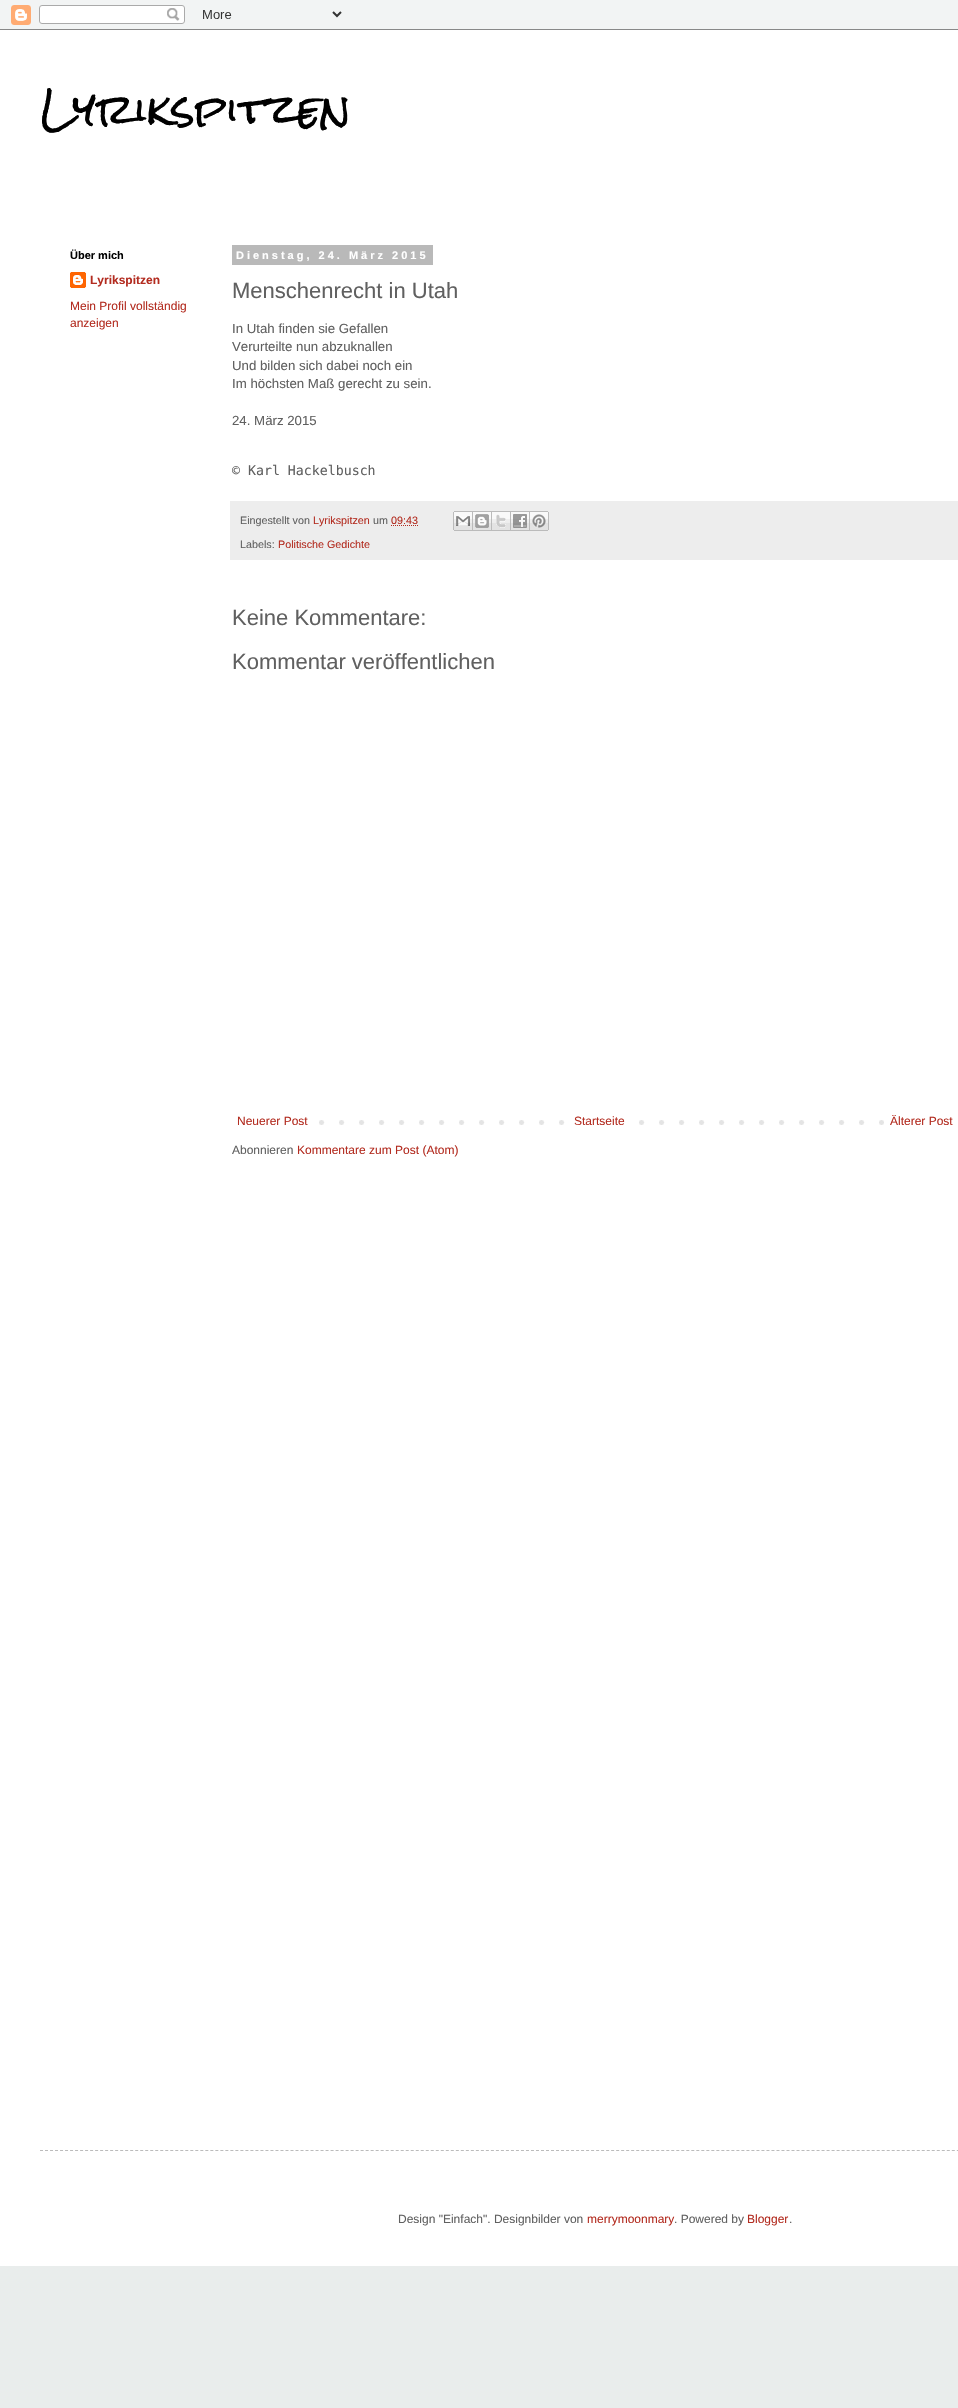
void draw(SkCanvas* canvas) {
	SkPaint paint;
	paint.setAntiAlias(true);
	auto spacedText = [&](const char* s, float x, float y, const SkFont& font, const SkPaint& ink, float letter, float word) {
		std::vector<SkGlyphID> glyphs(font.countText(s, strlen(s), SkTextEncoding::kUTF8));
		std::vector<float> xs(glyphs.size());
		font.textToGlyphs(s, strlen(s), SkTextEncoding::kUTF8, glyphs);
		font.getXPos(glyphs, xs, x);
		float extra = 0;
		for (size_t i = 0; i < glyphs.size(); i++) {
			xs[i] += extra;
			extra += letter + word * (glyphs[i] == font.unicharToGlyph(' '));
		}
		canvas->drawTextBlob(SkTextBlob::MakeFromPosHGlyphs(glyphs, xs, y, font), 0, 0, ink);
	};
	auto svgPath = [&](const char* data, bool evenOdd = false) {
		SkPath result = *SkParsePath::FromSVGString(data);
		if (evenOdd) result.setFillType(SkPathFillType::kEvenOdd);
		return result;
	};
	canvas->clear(0xffe9edec);
	canvas->drawImageRect(SkImages::DeferredFromEncodedData(SkData::MakeFromFileName("img1.png")), SkRect::MakeXYWH(0, 0, 958, 30), SkSamplingOptions());
	paint.setColor(0xffffffff);
	canvas->drawRect(SkRect::MakeXYWH(0, 30, 958, 2236), paint);
	SkFont f1(fontMgr->matchFamilyStyle("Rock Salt", SkFontStyle::Normal()), 40);
	f1.setSubpixel(true);
	paint.setColor(0xff000000);
	canvas->drawString("Lyrikspitzen", 40, 125, f1, paint);
	SkFont f2(fontMgr->matchFamilyStyle("Liberation Sans", SkFontStyle::Bold()), 11);
	f2.setSubpixel(true);
	canvas->drawString("Über mich", 70, 259, f2, paint);
	canvas->drawImageRect(SkImages::DeferredFromEncodedData(SkData::MakeFromFileName("img2.png")), SkRect::MakeXYWH(70, 272, 16, 16), SkSamplingOptions());
	SkFont f3(fontMgr->matchFamilyStyle("Liberation Sans", SkFontStyle::Bold()), 12);
	f3.setSubpixel(true);
	paint.setColor(0xffb32c20);
	canvas->drawString("Lyrikspitzen", 90, 284, f3, paint);
	SkFont f4(fontMgr->matchFamilyStyle("Liberation Sans", SkFontStyle::Normal()), 12);
	f4.setSubpixel(true);
	canvas->drawString("Mein Profil vollständig", 70, 310, f4, paint);
	canvas->drawString("anzeigen", 70, 327, f4, paint);
	paint.setColor(0xffb9b9b9);
	canvas->drawRect(SkRect::MakeXYWH(232, 245, 201, 20), paint);
	paint.setColor(0xffffffff);
	spacedText("Dienstag, 24. März 2015", 236, 259, f2, paint, 3, 0);
	SkFont f5(fontMgr->matchFamilyStyle("Liberation Sans", SkFontStyle::Normal()), 22);
	f5.setSubpixel(true);
	paint.setColor(0xff606060);
	canvas->drawString("Menschenrecht in Utah", 232, 298, f5, paint);
	SkFont f6(fontMgr->matchFamilyStyle("Liberation Sans", SkFontStyle::Normal()), 13.25);
	f6.setSubpixel(true);
	canvas->drawString("In Utah finden sie Gefallen", 232, 333, f6, paint);
	canvas->drawString("Verurteilte nun abzuknallen", 232, 351, f6, paint);
	canvas->drawString("Und bilden sich dabei noch ein", 232, 370, f6, paint);
	canvas->drawString("Im höchsten Maß gerecht zu sein.", 232, 388, f6, paint);
	canvas->drawString("24. März 2015", 232, 425, f6, paint);
	SkFont f7(fontMgr->matchFamilyStyle("DejaVu Sans Mono", SkFontStyle::Normal()), 13.25);
	f7.setSubpixel(true);
	canvas->drawString("© Karl Hackelbusch", 232, 475, f7, paint);
	paint.setColor(0xffededed);
	canvas->drawRect(SkRect::MakeXYWH(230, 501, 728, 59), paint);
	SkFont f8(fontMgr->matchFamilyStyle("Liberation Sans", SkFontStyle::Normal()), 10.75);
	f8.setSubpixel(true);
	paint.setColor(0xff606060);
	canvas->drawString("Eingestellt von", 240, 524, f8, paint);
	paint.setColor(0xffb32c20);
	canvas->drawString("Lyrikspitzen", 313, 524, f8, paint);
	paint.setColor(0xff606060);
	canvas->drawString("um", 373, 524, f8, paint);
	paint.setColor(0xffb32c20);
	canvas->drawString("09:43", 391, 524, f8, paint);
	paint.setStroke(true);
	paint.setStrokeWidth(1);
	paint.setPathEffect(SkDashPathEffect::Make({{1, 1}}, 0));
	canvas->drawPath(svgPath("M391 525.5H418.5"), paint);
	paint.setPathEffect(nullptr);
	canvas->drawImageRect(SkImages::DeferredFromEncodedData(SkData::MakeFromFileName("img3.png")), SkRect::MakeXYWH(453, 511, 20, 20), SkSamplingOptions());
	canvas->drawImageRect(SkImages::DeferredFromEncodedData(SkData::MakeFromFileName("img4.png")), SkRect::MakeXYWH(473, 511, 19, 20), SkSamplingOptions());
	canvas->drawImageRect(SkImages::DeferredFromEncodedData(SkData::MakeFromFileName("img5.png")), SkRect::MakeXYWH(492, 511, 19, 20), SkSamplingOptions());
	canvas->drawImageRect(SkImages::DeferredFromEncodedData(SkData::MakeFromFileName("img6.png")), SkRect::MakeXYWH(511, 511, 19, 20), SkSamplingOptions());
	canvas->drawImageRect(SkImages::DeferredFromEncodedData(SkData::MakeFromFileName("img7.png")), SkRect::MakeXYWH(530, 511, 19, 20), SkSamplingOptions());
	paint.setStroke(false);
	paint.setColor(0xff606060);
	canvas->drawString("Labels:", 240, 548, f8, paint);
	paint.setColor(0xffb32c20);
	canvas->drawString("Politische Gedichte", 278, 548, f8, paint);
	paint.setColor(0xff606060);
	canvas->drawString("Keine Kommentare:", 232, 625, f5, paint);
	canvas->drawString("Kommentar veröffentlichen", 232, 669, f5, paint);
	canvas->drawImageRect(SkImages::DeferredFromEncodedData(SkData::MakeFromFileName("img8.png")), SkRect::MakeXYWH(319, 1120, 565, 5), SkSamplingOptions());
	paint.setColor(0xffb32c20);
	canvas->drawString("Neuerer Post", 237, 1125, f4, paint);
	paint.setColor(0xffffffff);
	canvas->drawRect(SkRect::MakeXYWH(579, 1120, 46, 5), paint);
	paint.setColor(0xffb32c20);
	canvas->drawString("Startseite", 574, 1125, f4, paint);
	canvas->drawString("Älterer Post", 890, 1125, f4, paint);
	paint.setColor(0xff606060);
	canvas->drawString("Abonnieren", 232, 1154, f4, paint);
	paint.setColor(0xffb32c20);
	canvas->drawString("Kommentare zum Post (Atom)", 297, 1154, f4, paint);
	paint.setStroke(true);
	paint.setColor(0xffbbbbbb);
	paint.setPathEffect(SkDashPathEffect::Make({{3, 2.01f}}, 0));
	canvas->drawPath(svgPath("M40 2150.5H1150"), paint);
	paint.setPathEffect(nullptr);
	paint.setStroke(false);
	paint.setColor(0xff606060);
	canvas->drawString("Design \"Einfach\". Designbilder von", 398, 2223, f4, paint);
	paint.setColor(0xffb32c20);
	canvas->drawString("merrymoonmary", 587, 2223, f4, paint);
	paint.setColor(0xff606060);
	canvas->drawString(". Powered by", 674, 2223, f4, paint);
	paint.setColor(0xffb32c20);
	canvas->drawString("Blogger", 747, 2223, f4, paint);
	paint.setColor(0xff606060);
	canvas->drawString(".", 789, 2223, f4, paint);
}
